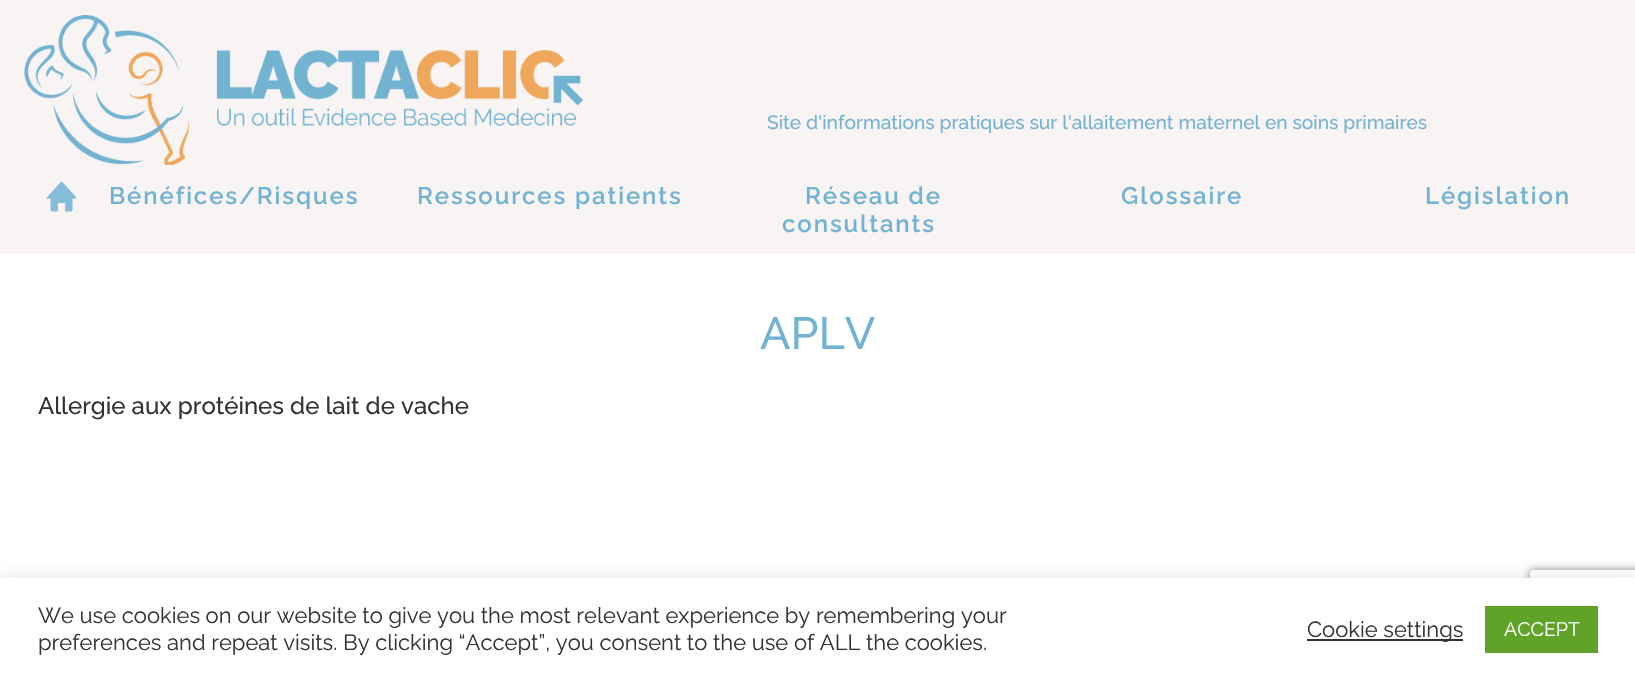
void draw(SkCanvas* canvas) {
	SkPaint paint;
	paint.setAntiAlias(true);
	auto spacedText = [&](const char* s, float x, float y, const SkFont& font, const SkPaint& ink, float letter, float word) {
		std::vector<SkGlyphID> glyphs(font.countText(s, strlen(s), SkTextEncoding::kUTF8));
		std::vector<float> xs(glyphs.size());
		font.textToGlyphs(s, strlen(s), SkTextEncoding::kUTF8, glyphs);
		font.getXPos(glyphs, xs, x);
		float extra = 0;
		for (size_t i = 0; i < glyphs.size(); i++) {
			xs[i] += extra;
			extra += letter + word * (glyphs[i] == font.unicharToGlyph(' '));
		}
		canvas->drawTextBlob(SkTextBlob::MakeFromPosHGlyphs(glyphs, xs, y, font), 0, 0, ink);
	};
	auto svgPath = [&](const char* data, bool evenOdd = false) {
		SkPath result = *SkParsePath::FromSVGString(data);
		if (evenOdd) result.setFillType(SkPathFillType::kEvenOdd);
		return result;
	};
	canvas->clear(0xfff9f4f4);
	canvas->drawImageRect(SkImages::DeferredFromEncodedData(SkData::MakeFromFileName("img1.png")), SkRect::MakeXYWH(24, 15, 560, 150), SkSamplingOptions());
	SkFont f1(fontMgr->matchFamilyStyle("Raleway", SkFontStyle(500, SkFontStyle::kNormal_Width, SkFontStyle::kUpright_Slant)), 19.2);
	f1.setSubpixel(true);
	paint.setColor(0xff72b3d3);
	canvas->drawString("Site d'informations pratiques sur l'allaitement maternel en soins primaires", 767, 129, f1, paint);
	canvas->drawImageRect(SkImages::DeferredFromEncodedData(SkData::MakeFromFileName("img2.png")), SkRect::MakeXYWH(46, 181, 31, 31), SkSamplingOptions());
	SkFont f2(fontMgr->matchFamilyStyle("Raleway", SkFontStyle(600, SkFontStyle::kNormal_Width, SkFontStyle::kUpright_Slant)), 24);
	f2.setSubpixel(true);
	spacedText("Bénéfices/Risques", 109, 204, f2, paint, 1.9, 0);
	spacedText("Ressources patients", 417, 204, f2, paint, 1.9, 0);
	spacedText("Réseau de", 805, 204, f2, paint, 1.9, 0);
	spacedText("consultants", 782, 232, f2, paint, 1.9, 0);
	spacedText("Glossaire", 1121, 204, f2, paint, 1.9, 0);
	spacedText("Législation", 1425, 204, f2, paint, 1.9, 0);
	paint.setColor(0xffffffff);
	canvas->drawRect(SkRect::MakeXYWH(0, 254, 1635, 324), paint);
	SkFont f3(fontMgr->matchFamilyStyle("Raleway", SkFontStyle(500, SkFontStyle::kNormal_Width, SkFontStyle::kUpright_Slant)), 45);
	f3.setSubpixel(true);
	paint.setColor(0xff72b3d3);
	canvas->drawString("APLV", 760, 349, f3, paint);
	SkFont f4(fontMgr->matchFamilyStyle("Raleway", SkFontStyle(500, SkFontStyle::kNormal_Width, SkFontStyle::kUpright_Slant)), 24);
	f4.setSubpixel(true);
	paint.setColor(0xff333333);
	canvas->drawString("Allergie aux protéines de lait de vache", 38, 414, f4, paint);
	canvas->save();
	canvas->clipPath(svgPath("M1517 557H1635V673H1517ZM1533 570H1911C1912.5 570 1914 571.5 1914 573V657C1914 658.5 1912.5 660 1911 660H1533C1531.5 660 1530 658.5 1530 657V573C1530 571.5 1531.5 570 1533 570Z", true), true);
	paint.setColor(0xff808080);
	paint.setMaskFilter(SkMaskFilter::MakeBlur(kNormal_SkBlurStyle, 4));
	canvas->drawRoundRect(SkRect::MakeXYWH(1530, 570, 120, 90), 3, 3, paint);
	paint.setMaskFilter(nullptr);
	canvas->restore();
	paint.setColor(0x4dacabab);
	paint.setMaskFilter(SkMaskFilter::MakeBlur(kNormal_SkBlurStyle, 7.5));
	canvas->drawRect(SkRect::MakeXYWH(0, 576, 1635, 104), paint);
	paint.setMaskFilter(nullptr);
	paint.setColor(0xffffffff);
	canvas->drawRect(SkRect::MakeXYWH(0, 578, 1635, 103), paint);
	SkFont f5(fontMgr->matchFamilyStyle("Raleway", SkFontStyle::Normal()), 22);
	f5.setSubpixel(true);
	paint.setColor(0xff333333);
	canvas->drawString("We use cookies on our website to give you the most relevant experience by remembering your", 38, 623, f5, paint);
	canvas->drawString("preferences and repeat visits. By clicking “Accept”, you consent to the use of ALL the cookies.", 38, 650, f5, paint);
	canvas->drawRect(SkRect::MakeXYWH(1307, 639, 156, 2), paint);
	canvas->drawString("Cookie settings", 1307, 637, f5, paint);
	paint.setColor(0xff61a229);
	canvas->drawRect(SkRect::MakeXYWH(1485, 606, 113, 47), paint);
	SkFont f6(fontMgr->matchFamilyStyle("Raleway", SkFontStyle::Normal()), 19.5);
	f6.setSubpixel(true);
	paint.setColor(0xffffffff);
	canvas->drawString("ACCEPT", 1504, 636, f6, paint);
}
